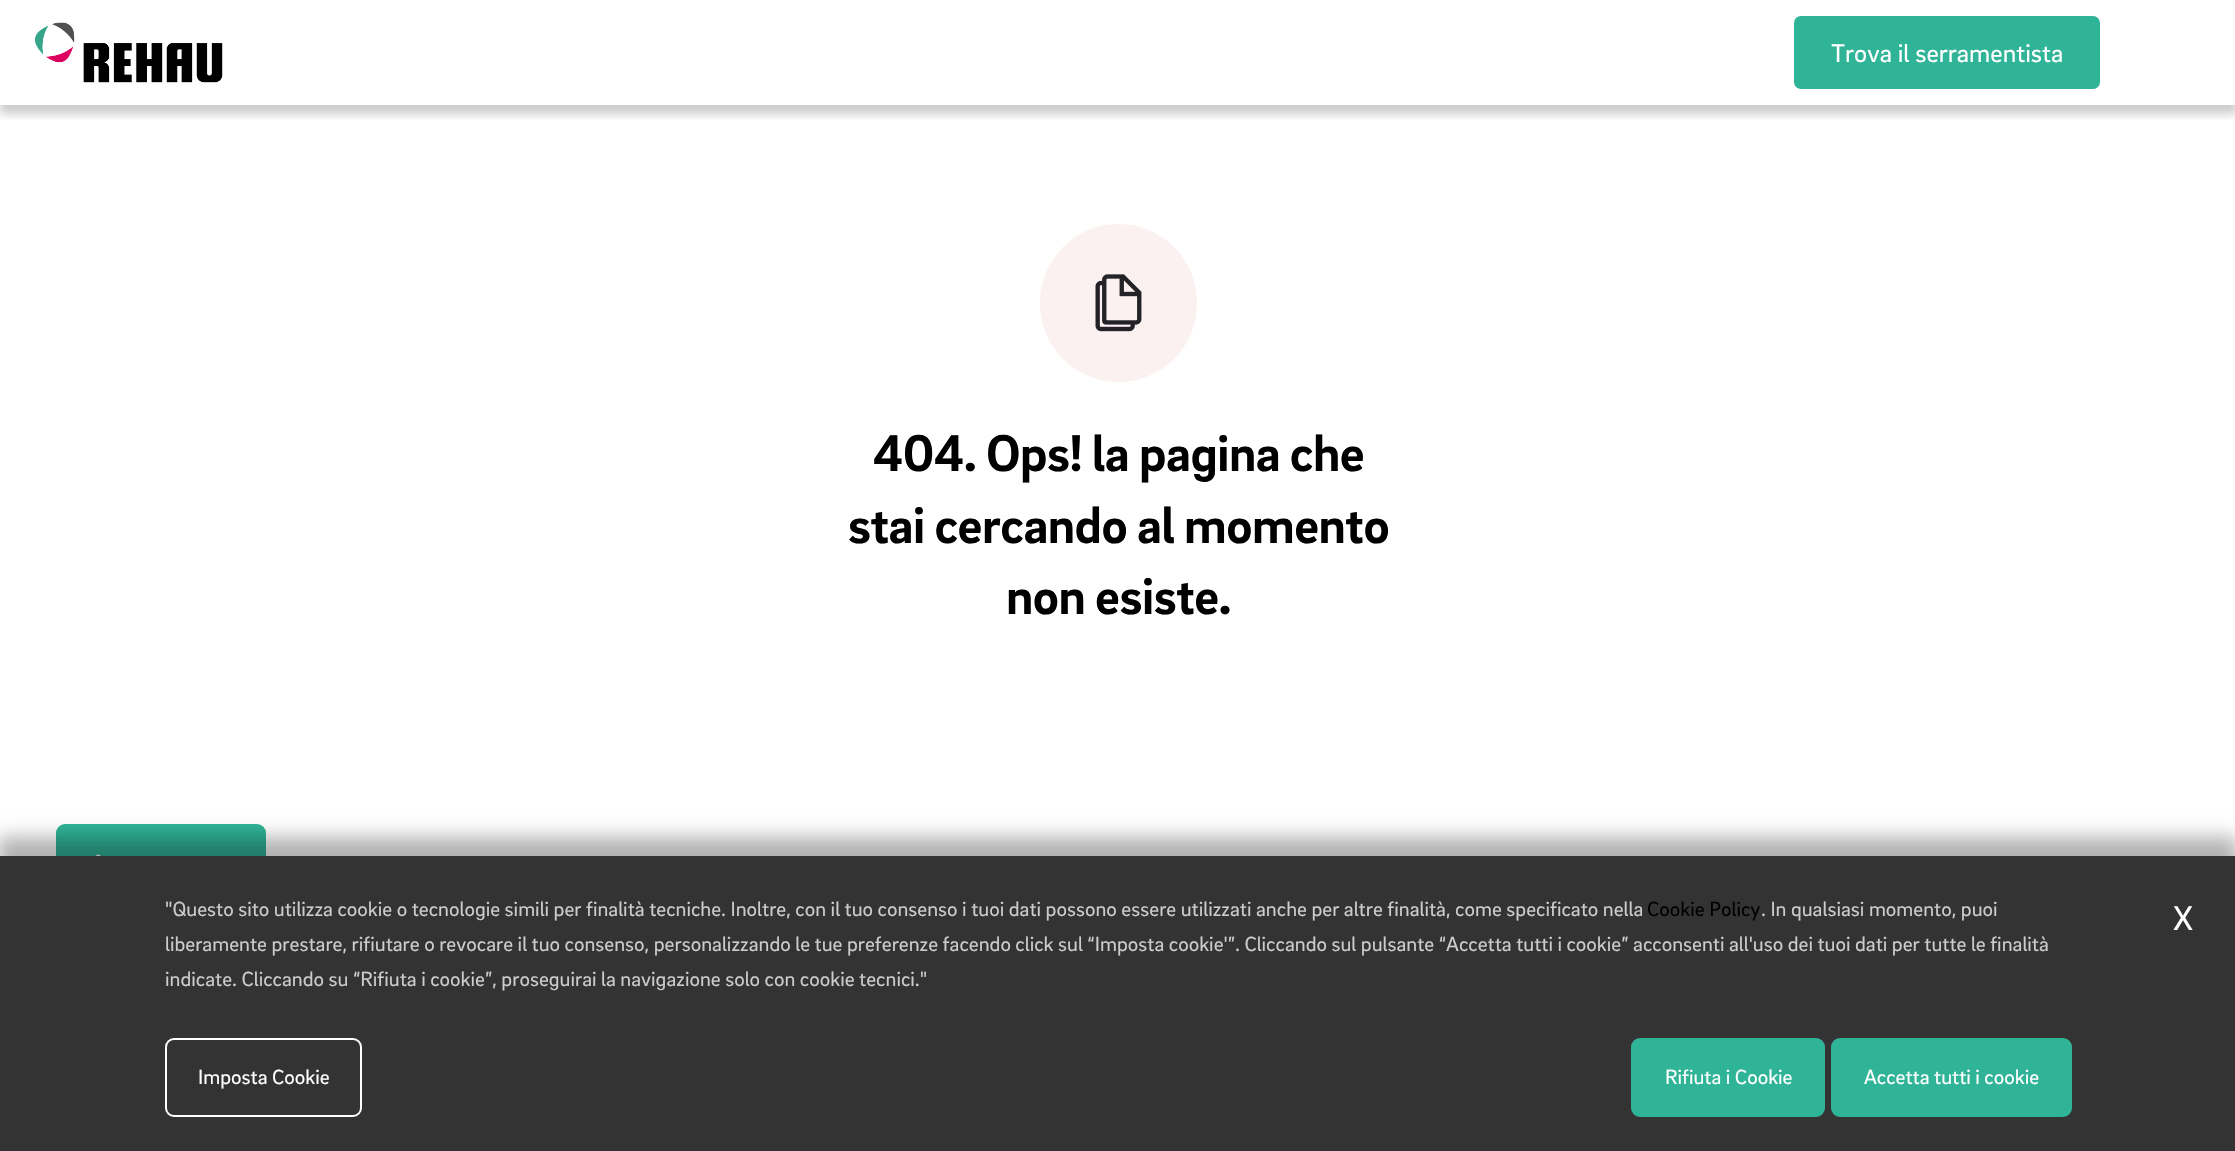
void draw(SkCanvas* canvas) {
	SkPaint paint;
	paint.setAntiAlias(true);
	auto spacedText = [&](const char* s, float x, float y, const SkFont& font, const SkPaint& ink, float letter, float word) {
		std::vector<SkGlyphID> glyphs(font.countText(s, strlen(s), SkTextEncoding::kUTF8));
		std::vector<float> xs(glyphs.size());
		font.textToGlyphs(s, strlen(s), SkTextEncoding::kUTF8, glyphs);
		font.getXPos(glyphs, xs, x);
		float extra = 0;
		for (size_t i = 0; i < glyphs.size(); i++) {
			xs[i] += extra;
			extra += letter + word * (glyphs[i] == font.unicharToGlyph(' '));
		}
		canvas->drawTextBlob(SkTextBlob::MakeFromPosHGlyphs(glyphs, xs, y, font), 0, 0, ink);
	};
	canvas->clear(0xffffffff);
	canvas->save();
	canvas->clipRect(SkRect::MakeXYWH(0, 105, 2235, 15));
	paint.setColor(0x33000000);
	paint.setMaskFilter(SkMaskFilter::MakeBlur(kNormal_SkBlurStyle, 4.5));
	canvas->drawRect(SkRect::MakeXYWH(0, 9, 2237, 105), paint);
	paint.setMaskFilter(nullptr);
	canvas->restore();
	canvas->drawImageRect(SkImages::DeferredFromEncodedData(SkData::MakeFromFileName("img1.png")), SkRect::MakeXYWH(35, 22, 188, 61), SkSamplingOptions());
	paint.setColor(0xff30b498);
	canvas->drawRoundRect(SkRect::MakeXYWH(1795, 17, 304, 71), 6, 6, paint);
	paint.setStroke(true);
	paint.setStrokeWidth(2);
	canvas->drawRoundRect(SkRect::MakeXYWH(1795, 17, 304, 71), 6, 6, paint);
	SkFont f1(fontMgr->matchFamilyStyle("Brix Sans", SkFontStyle::Normal()), 26.25);
	f1.setSubpixel(true);
	paint.setStroke(false);
	paint.setColor(0xffffffff);
	canvas->drawString("Trova il serramentista", 1831, 62, f1, paint);
	paint.setColor(0xfffcf1f1);
	canvas->drawRoundRect(SkRect::MakeXYWH(1040, 224, 157, 158), 78.5, 78.5, paint);
	canvas->drawImageRect(SkImages::DeferredFromEncodedData(SkData::MakeFromFileName("img2.png")), SkRect::MakeXYWH(1095, 274, 47, 58), SkSamplingOptions());
	SkFont f2(fontMgr->matchFamilyStyle("Brix Sans", SkFontStyle::Bold()), 52.75);
	f2.setSubpixel(true);
	paint.setColor(0xff000000);
	spacedText("404. Ops! la pagina che", 873, 471, f2, paint, -0.5, 0);
	spacedText("stai cercando al momento", 848, 543, f2, paint, -0.5, 0);
	spacedText("non esiste.", 1006, 614, f2, paint, -0.5, 0);
	paint.setColor(0xff30b498);
	canvas->drawRoundRect(SkRect::MakeXYWH(57, 825, 208, 82), 8, 8, paint);
	paint.setStroke(true);
	canvas->drawRoundRect(SkRect::MakeXYWH(57, 825, 208, 82), 8, 8, paint);
	canvas->drawImageRect(SkImages::DeferredFromEncodedData(SkData::MakeFromFileName("img3.png")), SkRect::MakeXYWH(96, 854, 5, 2), SkSamplingOptions());
	paint.setStroke(false);
	paint.setColor(0x4d000000);
	paint.setMaskFilter(SkMaskFilter::MakeBlur(kNormal_SkBlurStyle, 9));
	canvas->drawRect(SkRect::MakeXYWH(-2, 837, 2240, 299), paint);
	paint.setMaskFilter(nullptr);
	paint.setColor(0xff333333);
	canvas->drawRect(SkRect::MakeXYWH(0, 856, 2235, 295), paint);
	SkFont f3(fontMgr->matchFamilyStyle("Brix Sans", SkFontStyle::Normal()), 21);
	f3.setSubpixel(true);
	paint.setColor(0xffcccccc);
	canvas->drawString("\"Questo sito utilizza cookie o tecnologie simili per finalità tecniche. Inoltre, con il tuo consenso i tuoi dati possono essere utilizzati anche per altre finalità, come specificato nella", 165, 916, f3, paint);
	paint.setColor(0xff000000);
	canvas->drawString("Cookie Policy", 1647, 916, f3, paint);
	paint.setColor(0xffcccccc);
	canvas->drawString(". In qualsiasi momento, puoi", 1761, 916, f3, paint);
	canvas->drawString("liberamente prestare, rifiutare o revocare il tuo consenso, personalizzando le tue preferenze facendo click sul “Imposta cookie'”. Cliccando sul pulsante “Accetta tutti i cookie” acconsenti all'uso dei tuoi dati per tutte le finalità", 165, 951, f3, paint);
	canvas->drawString("indicate. Cliccando su “Rifiuta i cookie”, proseguirai la navigazione solo con cookie tecnici.\"", 165, 986, f3, paint);
	paint.setStroke(true);
	paint.setColor(0xffffffff);
	canvas->drawRoundRect(SkRect::MakeXYWH(166, 1039, 195, 77), 8, 8, paint);
	paint.setStroke(false);
	canvas->drawString("Imposta Cookie", 198, 1084, f3, paint);
	paint.setColor(0xff30b498);
	canvas->drawRoundRect(SkRect::MakeXYWH(1632, 1039, 192, 77), 8, 8, paint);
	paint.setStroke(true);
	canvas->drawRoundRect(SkRect::MakeXYWH(1632, 1039, 192, 77), 8, 8, paint);
	paint.setStroke(false);
	paint.setColor(0xffffffff);
	canvas->drawString("Rifiuta i Cookie", 1665, 1084, f3, paint);
	paint.setColor(0xff30b498);
	canvas->drawRoundRect(SkRect::MakeXYWH(1832, 1039, 239, 77), 8, 8, paint);
	paint.setStroke(true);
	canvas->drawRoundRect(SkRect::MakeXYWH(1832, 1039, 239, 77), 8, 8, paint);
	paint.setStroke(false);
	paint.setColor(0xffffffff);
	canvas->drawString("Accetta tutti i cookie", 1864, 1084, f3, paint);
	SkFont f4(fontMgr->matchFamilyStyle("Brix Sans", SkFontStyle::Normal()), 35);
	f4.setSubpixel(true);
	canvas->drawString("X", 2173, 930, f4, paint);
}
